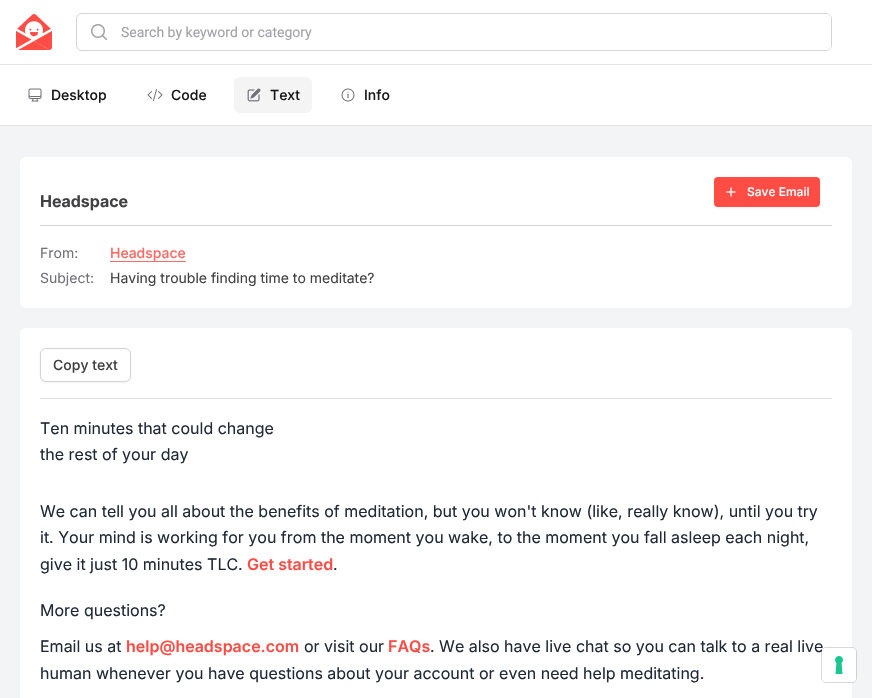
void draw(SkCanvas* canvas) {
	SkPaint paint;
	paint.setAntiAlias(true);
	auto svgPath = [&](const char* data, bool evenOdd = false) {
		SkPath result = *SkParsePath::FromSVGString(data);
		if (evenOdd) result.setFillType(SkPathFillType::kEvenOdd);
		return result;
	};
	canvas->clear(0xfff3f4f6);
	paint.setColor(0xffffffff);
	canvas->drawRect(SkRect::MakeXYWH(0, 0, 872, 64), paint);
	canvas->drawImageRect(SkImages::DeferredFromEncodedData(SkData::MakeFromFileName("img1.png")), SkRect::MakeXYWH(16, 14, 36, 36), SkSamplingOptions());
	paint.setStroke(true);
	paint.setStrokeWidth(1);
	paint.setColor(0xffd4d4d8);
	canvas->drawRoundRect(SkRect::MakeXYWH(76.5, 13.5, 755, 37), 5.5, 5.5, paint);
	canvas->drawImageRect(SkImages::DeferredFromEncodedData(SkData::MakeFromFileName("img2.png")), SkRect::MakeXYWH(91, 24, 16, 16), SkSamplingOptions());
	paint.setStroke(false);
	paint.setColor(0xffffffff);
	canvas->drawPath(svgPath("M109 14H826C829 14 831 16 831 19V45C831 48 829 50 826 50H109Z"), paint);
	SkFont f1(fontMgr->matchFamilyStyle("Roboto", SkFontStyle::Normal()), 14);
	f1.setSubpixel(true);
	paint.setColor(0xffa1a1aa);
	canvas->drawString("Search by keyword or category", 121, 37, f1, paint);
	paint.setColor(0xffffffff);
	canvas->drawRect(SkRect::MakeXYWH(0, 65, 872, 60), paint);
	paint.setColor(0xffe4e4e7);
	canvas->drawRect(SkRect::MakeXYWH(0, 64, 872, 1), paint);
	canvas->drawRect(SkRect::MakeXYWH(0, 125, 872, 1), paint);
	canvas->drawImageRect(SkImages::DeferredFromEncodedData(SkData::MakeFromFileName("img3.png")), SkRect::MakeXYWH(28, 88, 14, 14), SkSamplingOptions());
	SkFont f2(fontMgr->matchFamilyStyle("Inter", SkFontStyle(500, SkFontStyle::kNormal_Width, SkFontStyle::kUpright_Slant)), 14);
	f2.setSubpixel(true);
	paint.setColor(0xff18181b);
	canvas->drawString("Desktop", 51, 100, f2, paint);
	canvas->drawImageRect(SkImages::DeferredFromEncodedData(SkData::MakeFromFileName("img4.png")), SkRect::MakeXYWH(147, 89, 16, 12), SkSamplingOptions());
	canvas->drawString("Code", 171, 100, f2, paint);
	paint.setColor(0xfff4f4f5);
	canvas->drawRoundRect(SkRect::MakeXYWH(234, 77, 78, 36), 6, 6, paint);
	canvas->drawImageRect(SkImages::DeferredFromEncodedData(SkData::MakeFromFileName("img5.png")), SkRect::MakeXYWH(247, 88, 14, 14), SkSamplingOptions());
	paint.setColor(0xff18181b);
	canvas->drawString("Text", 270, 100, f2, paint);
	canvas->drawImageRect(SkImages::DeferredFromEncodedData(SkData::MakeFromFileName("img6.png")), SkRect::MakeXYWH(341, 88, 14, 14), SkSamplingOptions());
	canvas->drawString("Info", 364, 100, f2, paint);
	paint.setColor(0xffffffff);
	canvas->drawRoundRect(SkRect::MakeXYWH(20, 157, 832, 151), 6, 6, paint);
	paint.setColor(0x0d000000);
	paint.setMaskFilter(SkMaskFilter::MakeBlur(kNormal_SkBlurStyle, 1));
	canvas->drawRoundRect(SkRect::MakeXYWH(714, 178, 106, 30), 4, 4, paint);
	paint.setMaskFilter(nullptr);
	paint.setColor(0xffff4c44);
	canvas->drawRoundRect(SkRect::MakeXYWH(714, 177, 106, 30), 4, 4, paint);
	canvas->drawImageRect(SkImages::DeferredFromEncodedData(SkData::MakeFromFileName("img7.png")), SkRect::MakeXYWH(726, 187, 10, 10), SkSamplingOptions());
	SkFont f3(fontMgr->matchFamilyStyle("Inter", SkFontStyle(500, SkFontStyle::kNormal_Width, SkFontStyle::kUpright_Slant)), 12);
	f3.setSubpixel(true);
	paint.setColor(0xffffffff);
	canvas->drawString("Save Email", 747, 196, f3, paint);
	SkFont f4(fontMgr->matchFamilyStyle("Inter", SkFontStyle::Bold()), 16);
	f4.setSubpixel(true);
	paint.setColor(0xff414042);
	canvas->drawString("Headspace", 40, 207, f4, paint);
	paint.setColor(0xffd4d4d8);
	canvas->drawRect(SkRect::MakeXYWH(40, 225, 792, 1), paint);
	SkFont f5(fontMgr->matchFamilyStyle("Inter", SkFontStyle::Normal()), 14);
	f5.setSubpixel(true);
	paint.setColor(0xff71717a);
	canvas->drawString("From:", 40, 258, f5, paint);
	paint.setColor(0xffff6863);
	canvas->drawString("Headspace", 110, 258, f2, paint);
	canvas->drawRect(SkRect::MakeXYWH(110, 261, 76, 1), paint);
	paint.setColor(0xff71717a);
	canvas->drawString("Subject:", 40, 283, f5, paint);
	paint.setColor(0xff414042);
	canvas->drawString("Having trouble finding time to meditate?", 110, 283, f5, paint);
	paint.setColor(0xffffffff);
	canvas->drawRoundRect(SkRect::MakeXYWH(20, 328, 832, 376), 6, 6, paint);
	paint.setColor(0x0d000000);
	paint.setMaskFilter(SkMaskFilter::MakeBlur(kNormal_SkBlurStyle, 1));
	canvas->drawRoundRect(SkRect::MakeXYWH(40, 349, 91, 34), 6, 6, paint);
	paint.setMaskFilter(nullptr);
	paint.setColor(0xffffffff);
	canvas->drawRoundRect(SkRect::MakeXYWH(40.5, 348.5, 90, 33), 5.5, 5.5, paint);
	paint.setStroke(true);
	paint.setColor(0xffd4d4d8);
	canvas->drawRoundRect(SkRect::MakeXYWH(40.5, 348.5, 90, 33), 5.5, 5.5, paint);
	paint.setStroke(false);
	paint.setColor(0xff414042);
	canvas->drawString("Copy text", 53, 370, f2, paint);
	paint.setColor(0xffe4e4e7);
	canvas->drawRect(SkRect::MakeXYWH(40, 398, 792, 1), paint);
	SkFont f6(fontMgr->matchFamilyStyle("Inter", SkFontStyle::Normal()), 16);
	f6.setSubpixel(true);
	paint.setColor(0xff1f2937);
	canvas->drawString("Ten minutes that could change", 40, 434, f6, paint);
	canvas->drawString("the rest of your day", 40, 460, f6, paint);
	canvas->drawString("We can tell you all about the benefits of meditation, but you won't know (like, really know), until you try", 40, 517, f6, paint);
	canvas->drawString("it. Your mind is working for you from the moment you wake, to the moment you fall asleep each night,", 40, 543, f6, paint);
	canvas->drawString("give it just 10 minutes TLC.", 40, 570, f6, paint);
	SkFont f7(fontMgr->matchFamilyStyle("Inter", SkFontStyle(600, SkFontStyle::kNormal_Width, SkFontStyle::kUpright_Slant)), 16);
	f7.setSubpixel(true);
	paint.setColor(0xffff4c44);
	canvas->drawString("Get started", 247, 570, f7, paint);
	paint.setColor(0xff1f2937);
	canvas->drawString(".", 333, 570, f6, paint);
	canvas->drawString("More questions?", 40, 616, f6, paint);
	canvas->drawString("Email us at", 40, 652, f6, paint);
	paint.setColor(0xffff4c44);
	canvas->drawString("help@headspace.com", 126, 652, f7, paint);
	paint.setColor(0xff1f2937);
	canvas->drawString("or visit our", 304, 652, f6, paint);
	paint.setColor(0xffff4c44);
	canvas->drawString("FAQs", 388, 652, f7, paint);
	paint.setColor(0xff1f2937);
	canvas->drawString(". We also have live chat so you can talk to a real live", 430, 652, f6, paint);
	canvas->drawString("human whenever you have questions about your account or even need help meditating.", 40, 679, f6, paint);
	paint.setStroke(true);
	paint.setColor(0x26000000);
	canvas->drawRoundRect(SkRect::MakeXYWH(821.5, 647.5, 35, 35), 4.5, 4.5, paint);
	paint.setStroke(false);
	paint.setColor(0xffffffff);
	canvas->drawRoundRect(SkRect::MakeXYWH(822, 648, 34, 34), 4, 4, paint);
	canvas->drawImageRect(SkImages::DeferredFromEncodedData(SkData::MakeFromFileName("img8.png")), SkRect::MakeXYWH(835, 656, 8, 18), SkSamplingOptions());
}
